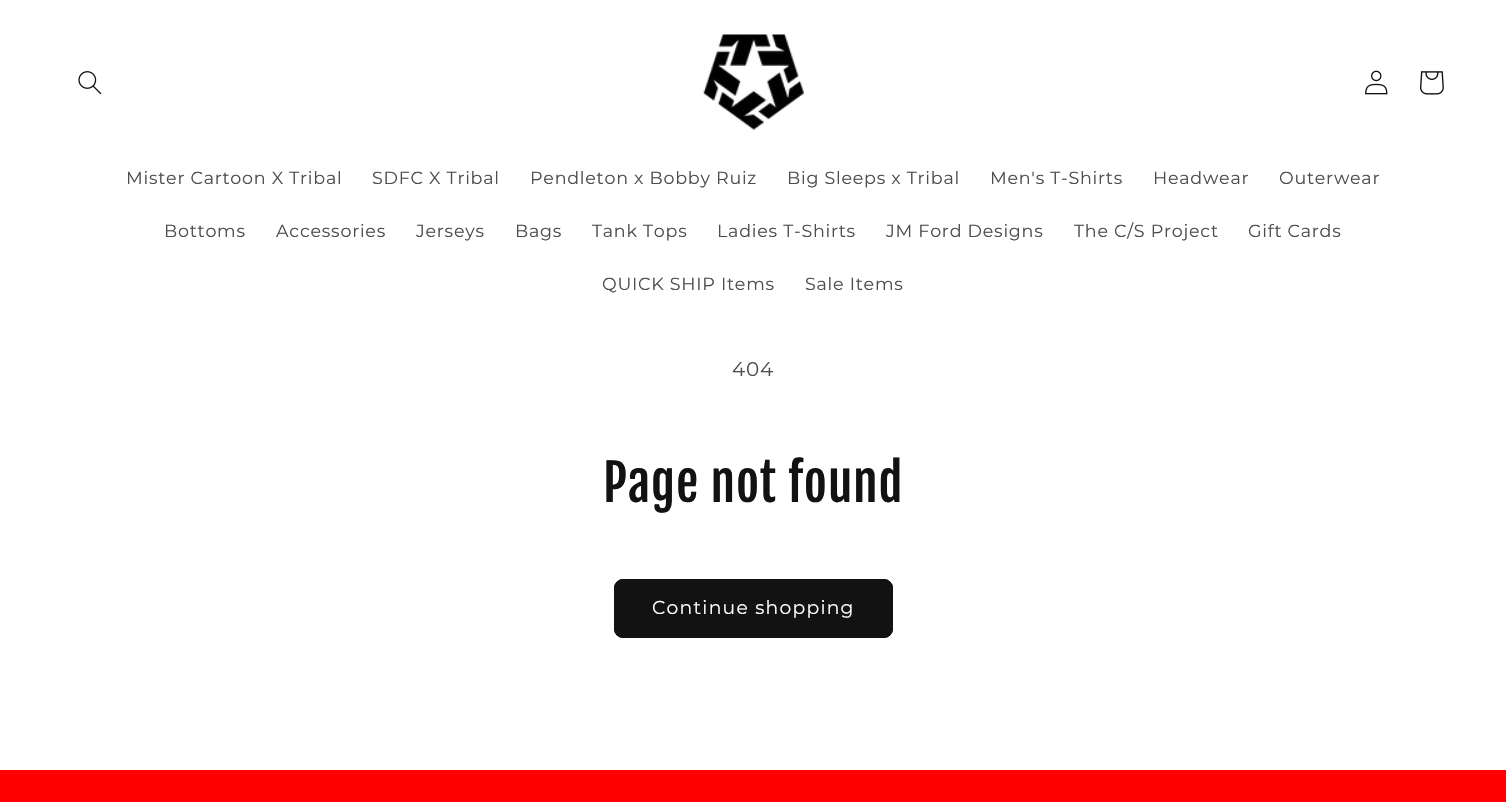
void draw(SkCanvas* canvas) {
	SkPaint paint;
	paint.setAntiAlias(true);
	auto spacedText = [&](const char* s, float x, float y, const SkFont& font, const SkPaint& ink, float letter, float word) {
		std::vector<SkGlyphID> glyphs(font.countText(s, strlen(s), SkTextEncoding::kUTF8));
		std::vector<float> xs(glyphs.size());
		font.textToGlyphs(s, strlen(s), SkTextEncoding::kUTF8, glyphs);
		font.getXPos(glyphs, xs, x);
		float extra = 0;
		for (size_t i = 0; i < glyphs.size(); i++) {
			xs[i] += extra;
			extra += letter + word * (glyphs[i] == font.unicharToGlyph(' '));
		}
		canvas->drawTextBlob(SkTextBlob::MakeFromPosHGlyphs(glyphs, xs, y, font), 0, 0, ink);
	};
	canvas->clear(0xffffffff);
	canvas->drawImageRect(SkImages::DeferredFromEncodedData(SkData::MakeFromFileName("img1.png")), SkRect::MakeXYWH(78, 71, 24, 24), SkSamplingOptions());
	canvas->drawImageRect(SkImages::DeferredFromEncodedData(SkData::MakeFromFileName("img2.png")), SkRect::MakeXYWH(703, 34, 101, 96), SkSamplingOptions());
	canvas->drawImageRect(SkImages::DeferredFromEncodedData(SkData::MakeFromFileName("img3.png")), SkRect::MakeXYWH(1365, 70, 23, 25), SkSamplingOptions());
	canvas->drawImageRect(SkImages::DeferredFromEncodedData(SkData::MakeFromFileName("img4.png")), SkRect::MakeXYWH(1420, 71, 24, 24), SkSamplingOptions());
	SkFont f1(fontMgr->matchFamilyStyle("Montserrat", SkFontStyle::Normal()), 17.5);
	f1.setSubpixel(true);
	paint.setColor(0xff4d4d4d);
	spacedText("Mister Cartoon X Tribal", 126, 184, f1, paint, 0.75, 0);
	spacedText("SDFC X Tribal", 372, 184, f1, paint, 0.75, 0);
	spacedText("Pendleton x Bobby Ruiz", 530, 184, f1, paint, 0.75, 0);
	spacedText("Big Sleeps x Tribal", 787, 184, f1, paint, 0.75, 0);
	spacedText("Men's T-Shirts", 990, 184, f1, paint, 0.75, 0);
	spacedText("Headwear", 1153, 184, f1, paint, 0.75, 0);
	spacedText("Outerwear", 1279, 184, f1, paint, 0.75, 0);
	spacedText("Bottoms", 164, 237, f1, paint, 0.75, 0);
	spacedText("Accessories", 276, 237, f1, paint, 0.75, 0);
	spacedText("Jerseys", 416, 237, f1, paint, 0.75, 0);
	spacedText("Bags", 515, 237, f1, paint, 0.75, 0);
	spacedText("Tank Tops", 592, 237, f1, paint, 0.75, 0);
	spacedText("Ladies T-Shirts", 717, 237, f1, paint, 0.75, 0);
	spacedText("JM Ford Designs", 886, 237, f1, paint, 0.75, 0);
	spacedText("The C/S Project", 1074, 237, f1, paint, 0.75, 0);
	spacedText("Gift Cards", 1248, 237, f1, paint, 0.75, 0);
	spacedText("QUICK SHIP Items", 602, 290, f1, paint, 0.75, 0);
	spacedText("Sale Items", 805, 290, f1, paint, 0.75, 0);
	SkFont f2(fontMgr->matchFamilyStyle("Montserrat", SkFontStyle::Normal()), 20);
	f2.setSubpixel(true);
	spacedText("404", 732, 376, f2, paint, 0.75, 0);
	SkFont f3(fontMgr->matchFamilyStyle("Fjalla One", SkFontStyle::Normal()), 50);
	f3.setSubpixel(true);
	paint.setColor(0xff121212);
	spacedText("Page not found", 603, 502, f3, paint, 0.75, 0);
	canvas->drawRoundRect(SkRect::MakeXYWH(614, 579, 279, 59), 9, 9, paint);
	paint.setStroke(true);
	paint.setStrokeWidth(1);
	canvas->drawRoundRect(SkRect::MakeXYWH(614.5, 579.5, 278, 58), 8.5, 8.5, paint);
	SkFont f4(fontMgr->matchFamilyStyle("Montserrat", SkFontStyle::Normal()), 18.75);
	f4.setSubpixel(true);
	paint.setStroke(false);
	paint.setColor(0xffffffff);
	spacedText("Continue shopping", 652, 614, f4, paint, 1.25, 0);
	paint.setColor(0xffff0000);
	canvas->drawRect(SkRect::MakeXYWH(0, 770, 1506, 32), paint);
}
